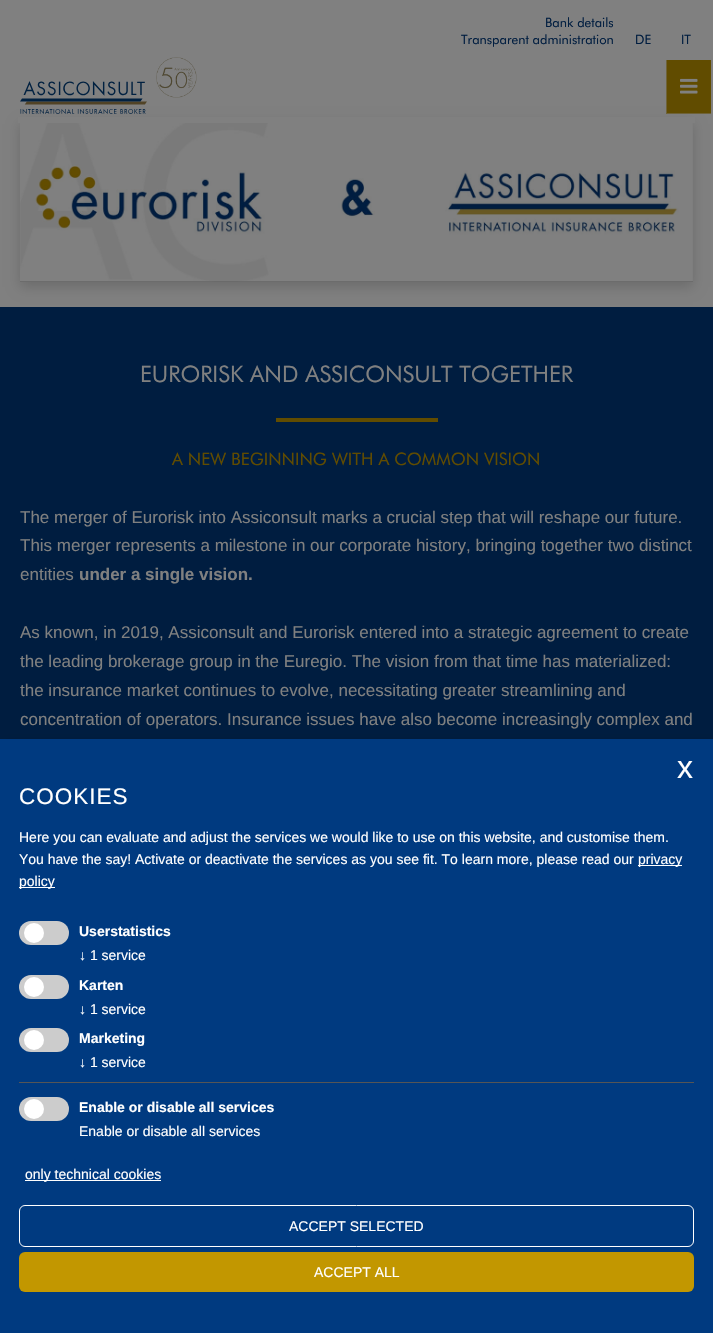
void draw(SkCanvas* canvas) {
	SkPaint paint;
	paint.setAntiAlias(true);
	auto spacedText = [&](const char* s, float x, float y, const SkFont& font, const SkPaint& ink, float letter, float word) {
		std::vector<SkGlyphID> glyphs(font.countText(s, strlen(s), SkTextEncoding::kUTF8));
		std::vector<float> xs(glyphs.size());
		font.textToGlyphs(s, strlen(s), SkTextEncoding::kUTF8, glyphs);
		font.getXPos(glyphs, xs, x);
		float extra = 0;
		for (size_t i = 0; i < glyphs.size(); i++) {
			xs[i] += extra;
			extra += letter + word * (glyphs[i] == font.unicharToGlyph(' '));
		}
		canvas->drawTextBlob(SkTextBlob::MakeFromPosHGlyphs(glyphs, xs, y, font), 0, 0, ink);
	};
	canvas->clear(0xff808080);
	paint.setColor(0x29000000);
	paint.setMaskFilter(SkMaskFilter::MakeBlur(kNormal_SkBlurStyle, 6));
	canvas->drawRect(SkRect::MakeXYWH(20, 124, 673, 163), paint);
	paint.setMaskFilter(nullptr);
	canvas->drawImageRect(SkImages::DeferredFromEncodedData(SkData::MakeFromFileName("img4.png")), SkRect::MakeXYWH(20, 119, 673, 163), SkSamplingOptions());
	paint.setColor(0xf2808080);
	canvas->drawRect(SkRect::MakeXYWH(18, 117, 677, 6), paint);
	SkFont f1(fontMgr->matchFamilyStyle("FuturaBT", SkFontStyle::Normal()), 13);
	f1.setSubpixel(true);
	paint.setColor(0xff001d40);
	canvas->drawString("Bank details", 545, 27, f1, paint);
	canvas->drawString("Transparent administration", 461, 44, f1, paint);
	canvas->drawString("DE", 635, 44, f1, paint);
	canvas->drawString("IT", 681, 44, f1, paint);
	canvas->drawImageRect(SkImages::DeferredFromEncodedData(SkData::MakeFromFileName("img1.png")), SkRect::MakeXYWH(20, 81, 127, 33), SkSamplingOptions());
	canvas->drawImageRect(SkImages::DeferredFromEncodedData(SkData::MakeFromFileName("img2.png")), SkRect::MakeXYWH(156, 57, 41, 41), SkSamplingOptions());
	paint.setColor(0xff614c00);
	canvas->drawRect(SkRect::MakeXYWH(667, 60, 44, 53), paint);
	paint.setColor(0xff6f6338);
	canvas->drawRect(SkRect::MakeXYWH(666, 113, 45, 1), paint);
	canvas->drawRect(SkRect::MakeXYWH(666, 60, 1, 54), paint);
	canvas->drawImageRect(SkImages::DeferredFromEncodedData(SkData::MakeFromFileName("img3.png")), SkRect::MakeXYWH(680, 78, 18, 16), SkSamplingOptions());
	paint.setColor(0xff001d40);
	canvas->drawRect(SkRect::MakeXYWH(0, 307, 713, 432), paint);
	SkFont f2(fontMgr->matchFamilyStyle("FuturaBT", SkFontStyle::Normal()), 22.75);
	f2.setSubpixel(true);
	paint.setColor(0xff808080);
	canvas->drawString("EURORISK AND ASSICONSULT TOGETHER", 140, 382, f2, paint);
	paint.setColor(0xff614c00);
	canvas->drawRect(SkRect::MakeXYWH(276, 418, 162, 4), paint);
	SkFont f3(fontMgr->matchFamilyStyle("FuturaBT", SkFontStyle::Normal()), 17.25);
	f3.setSubpixel(true);
	canvas->drawString("A NEW BEGINNING WITH A COMMON VISION", 172, 465, f3, paint);
	SkFont f4(fontMgr->matchFamilyStyle("Liberation Sans", SkFontStyle::Normal()), 17);
	f4.setSubpixel(true);
	paint.setColor(0xff808080);
	canvas->drawString("The merger of Eurorisk into Assiconsult marks a crucial step that will reshape our future.", 20, 523, f4, paint);
	canvas->drawString("This merger represents a milestone in our corporate history, bringing together two distinct", 20, 551, f4, paint);
	canvas->drawString("entities", 20, 580, f4, paint);
	SkFont f5(fontMgr->matchFamilyStyle("Liberation Sans", SkFontStyle::Bold()), 17);
	f5.setSubpixel(true);
	canvas->drawString("under a single vision.", 79, 580, f5, paint);
	canvas->drawString("As known, in 2019, Assiconsult and Eurorisk entered into a strategic agreement to create", 20, 638, f4, paint);
	canvas->drawString("the leading brokerage group in the Euregio. The vision from that time has materialized:", 20, 667, f4, paint);
	canvas->drawString("the insurance market continues to evolve, necessitating greater streamlining and", 20, 696, f4, paint);
	canvas->drawString("concentration of operators. Insurance issues have also become increasingly complex and", 20, 725, f4, paint);
	paint.setColor(0x30000000);
	paint.setMaskFilter(SkMaskFilter::MakeBlur(kNormal_SkBlurStyle, 5));
	canvas->drawRect(SkRect::MakeXYWH(5, 744, 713, 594), paint);
	paint.setMaskFilter(nullptr);
	paint.setColor(0xff003a80);
	canvas->drawRect(SkRect::MakeXYWH(0, 739, 713, 594), paint);
	SkFont f6(fontMgr->matchFamilyStyle("Liberation Sans", SkFontStyle::Normal()), 32);
	f6.setSubpixel(true);
	paint.setColor(0xffffffff);
	canvas->drawString("x", 677, 778, f6, paint);
	canvas->drawRect(SkRect::MakeXYWH(25, 1180, 136, 1), paint);
	SkFont f7(fontMgr->matchFamilyStyle("Liberation Sans", SkFontStyle::Normal()), 14);
	f7.setSubpixel(true);
	canvas->drawString("only technical cookies", 25, 1179, f7, paint);
	paint.setStroke(true);
	paint.setStrokeWidth(1);
	canvas->drawRoundRect(SkRect::MakeXYWH(19.5, 1205.5, 674, 41), 5.5, 5.5, paint);
	paint.setStroke(false);
	canvas->drawString("ACCEPT SELECTED", 289, 1231, f7, paint);
	paint.setColor(0xffc29700);
	canvas->drawRoundRect(SkRect::MakeXYWH(19, 1252, 675, 40), 6, 6, paint);
	paint.setColor(0xffffffff);
	canvas->drawString("ACCEPT ALL", 314, 1277, f7, paint);
	SkFont f8(fontMgr->matchFamilyStyle("Liberation Sans", SkFontStyle::Normal()), 22.5);
	f8.setSubpixel(true);
	spacedText("COOKIES", 19, 804, f8, paint, 1, 0);
	canvas->drawString("Here you can evaluate and adjust the services we would like to use on this website, and customise them.", 19, 842, f7, paint);
	canvas->drawString("You have the say! Activate or deactivate the services as you see fit. To learn more, please read our", 19, 864, f7, paint);
	canvas->drawRect(SkRect::MakeXYWH(638, 865, 44, 1), paint);
	canvas->drawString("privacy", 638, 864, f7, paint);
	canvas->drawRect(SkRect::MakeXYWH(19, 887, 36, 1), paint);
	canvas->drawString("policy", 19, 886, f7, paint);
	paint.setColor(0xffcccccc);
	canvas->drawRoundRect(SkRect::MakeXYWH(19, 921, 50, 24), 12, 12, paint);
	paint.setColor(0xffffffff);
	canvas->drawCircle(34, 933, 10, paint);
	SkFont f9(fontMgr->matchFamilyStyle("Liberation Sans", SkFontStyle::Bold()), 14);
	f9.setSubpixel(true);
	canvas->drawString("Userstatistics", 79, 936, f9, paint);
	canvas->drawString("↓ 1 service", 79, 960, f7, paint);
	paint.setColor(0xffcccccc);
	canvas->drawRoundRect(SkRect::MakeXYWH(19, 975, 50, 24), 12, 12, paint);
	paint.setColor(0xffffffff);
	canvas->drawCircle(34, 987, 10, paint);
	canvas->drawString("Karten", 79, 990, f9, paint);
	canvas->drawString("↓ 1 service", 79, 1014, f7, paint);
	paint.setColor(0xffcccccc);
	canvas->drawRoundRect(SkRect::MakeXYWH(19, 1028, 50, 24), 12, 12, paint);
	paint.setColor(0xffffffff);
	canvas->drawCircle(34, 1040, 10, paint);
	canvas->drawString("Marketing", 79, 1043, f9, paint);
	canvas->drawString("↓ 1 service", 79, 1067, f7, paint);
	paint.setColor(0xff555555);
	canvas->drawRect(SkRect::MakeXYWH(19, 1082, 675, 1), paint);
	paint.setColor(0xffcccccc);
	canvas->drawRoundRect(SkRect::MakeXYWH(19, 1097, 50, 24), 12, 12, paint);
	paint.setColor(0xffffffff);
	canvas->drawCircle(34, 1109, 10, paint);
	canvas->drawString("Enable or disable all services", 79, 1112, f9, paint);
	canvas->drawString("Enable or disable all services", 79, 1136, f7, paint);
}
